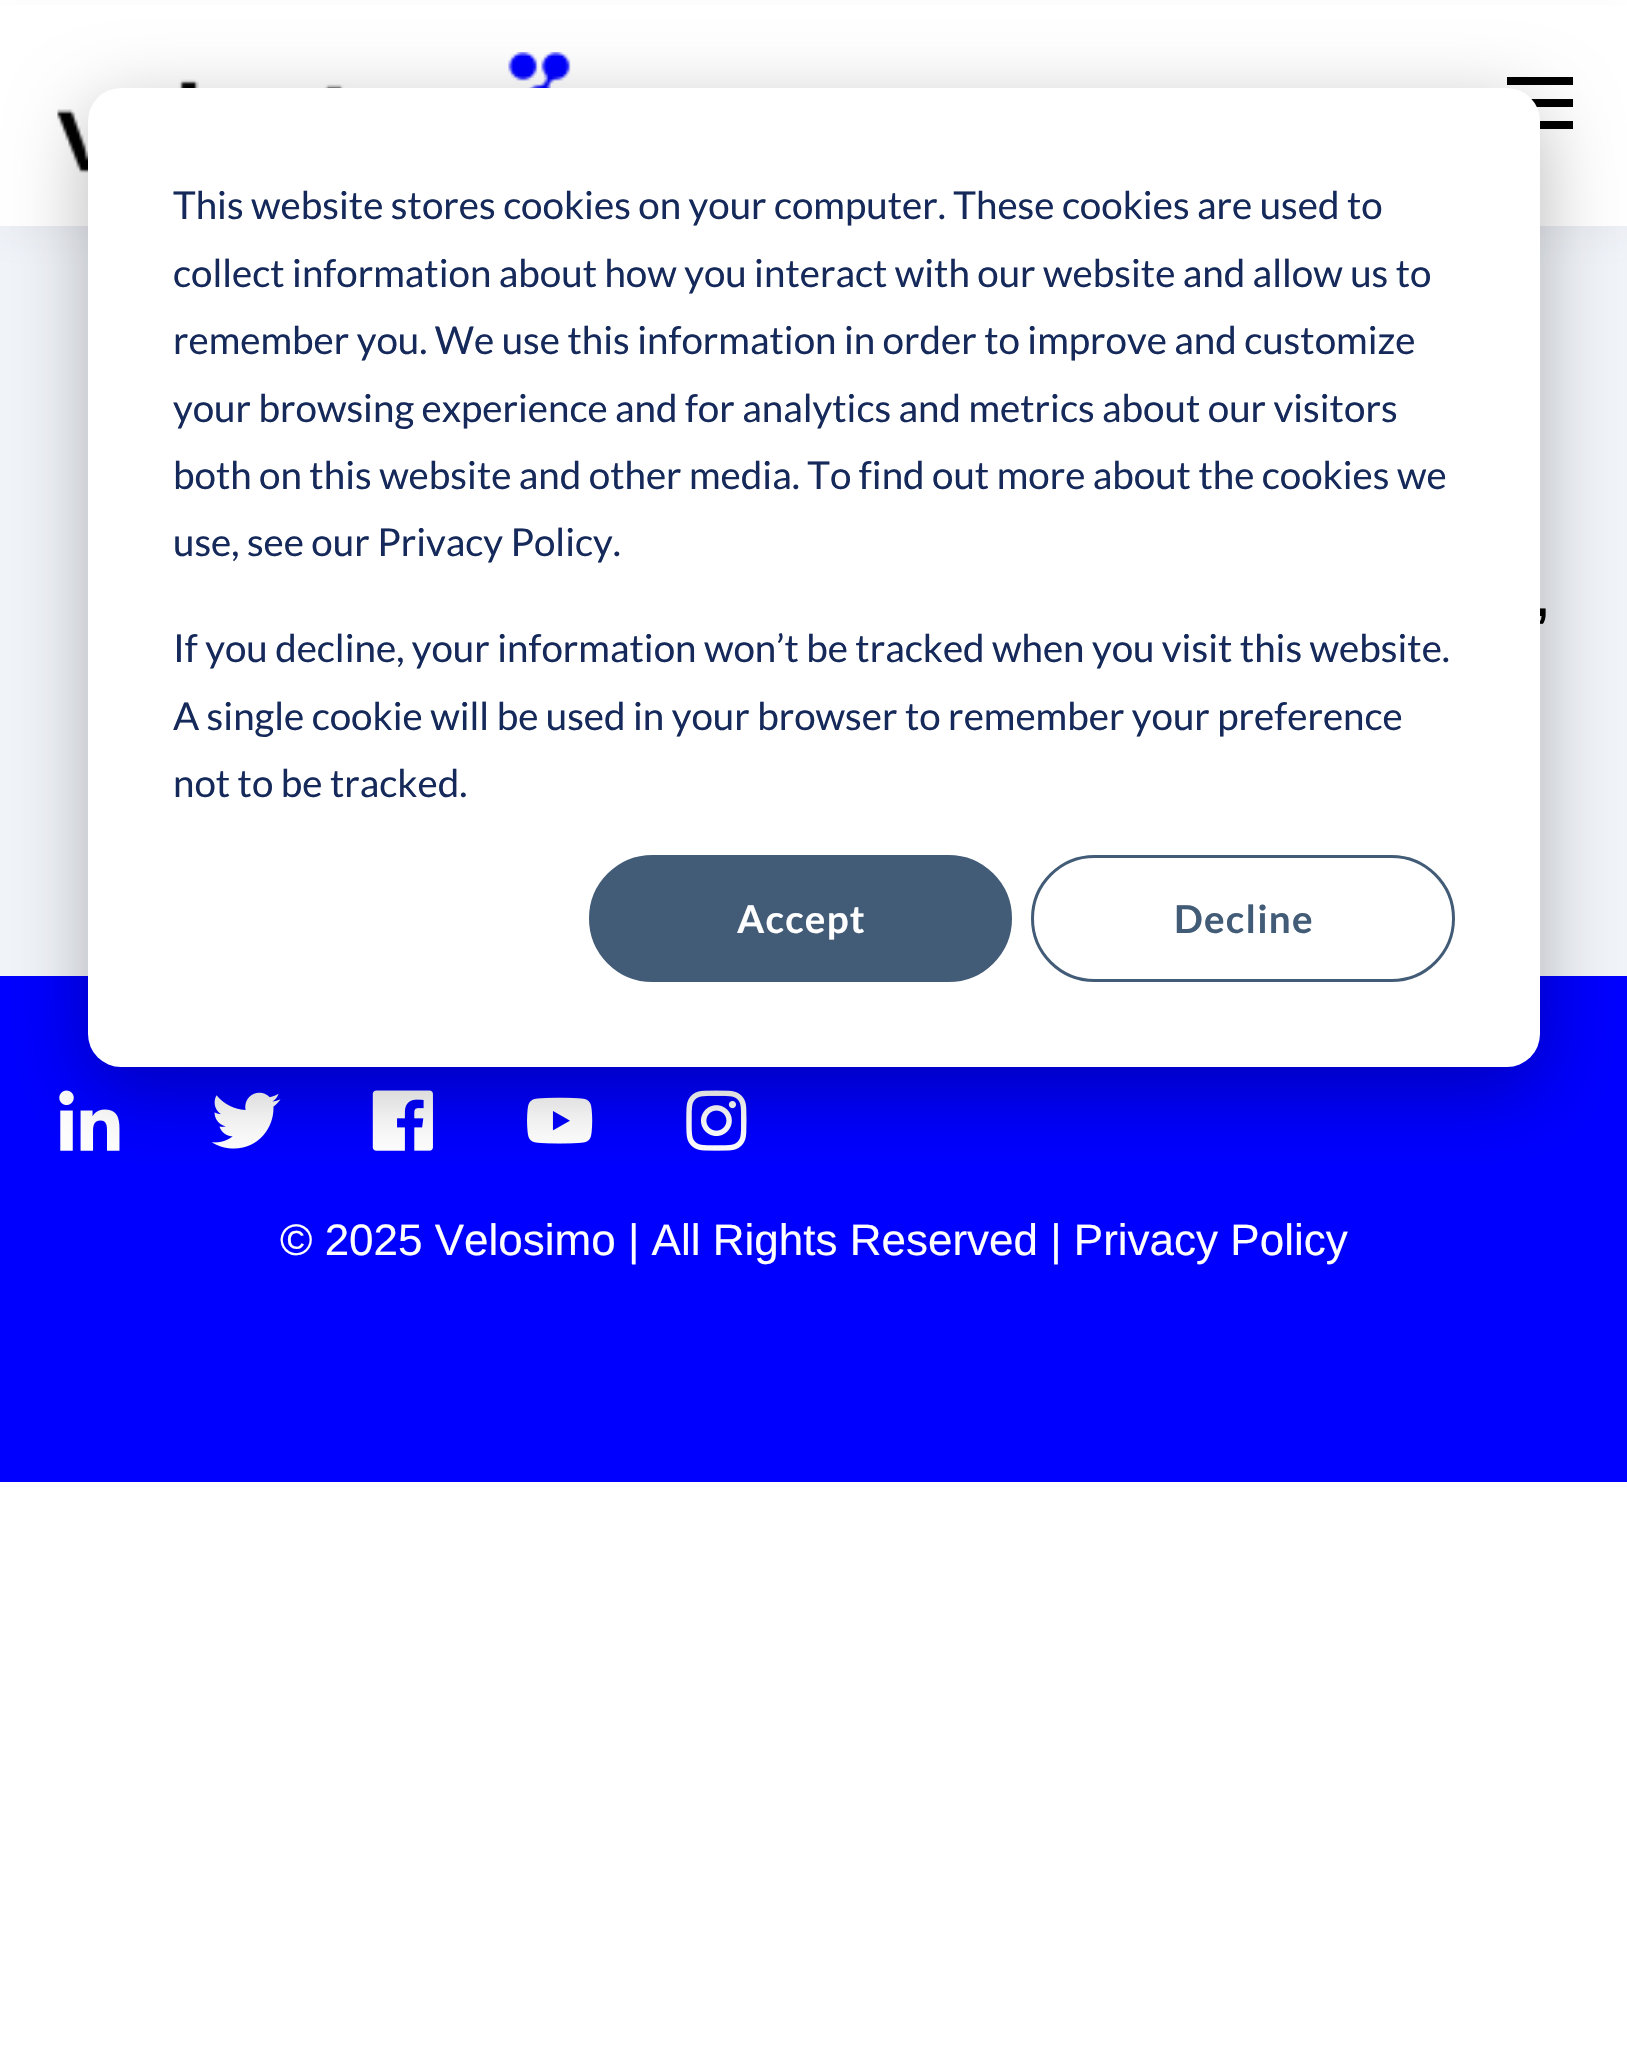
void draw(SkCanvas* canvas) {
	SkPaint paint;
	paint.setAntiAlias(true);
	auto spacedText = [&](const char* s, float x, float y, const SkFont& font, const SkPaint& ink, float letter, float word) {
		std::vector<SkGlyphID> glyphs(font.countText(s, strlen(s), SkTextEncoding::kUTF8));
		std::vector<float> xs(glyphs.size());
		font.textToGlyphs(s, strlen(s), SkTextEncoding::kUTF8, glyphs);
		font.getXPos(glyphs, xs, x);
		float extra = 0;
		for (size_t i = 0; i < glyphs.size(); i++) {
			xs[i] += extra;
			extra += letter + word * (glyphs[i] == font.unicharToGlyph(' '));
		}
		canvas->drawTextBlob(SkTextBlob::MakeFromPosHGlyphs(glyphs, xs, y, font), 0, 0, ink);
	};
	canvas->clear(0xffffffff);
	paint.setColor(0xfff1f4f9);
	canvas->drawRect(SkRect::MakeXYWH(0, 226, 1627, 750), paint);
	paint.setColor(0x1a9aa1b1);
	paint.setMaskFilter(SkMaskFilter::MakeBlur(kNormal_SkBlurStyle, 14));
	canvas->drawRect(SkRect::MakeXYWH(0, 14, 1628, 225), paint);
	paint.setMaskFilter(nullptr);
	paint.setColor(0xffffffff);
	canvas->drawRect(SkRect::MakeXYWH(0, 5, 1627, 221), paint);
	canvas->drawImageRect(SkImages::DeferredFromEncodedData(SkData::MakeFromFileName("img1.png")), SkRect::MakeXYWH(57, 52, 514, 121), SkSamplingOptions());
	paint.setColor(0xff000000);
	canvas->drawRect(SkRect::MakeXYWH(1531, 99, 42, 8), paint);
	canvas->drawRect(SkRect::MakeXYWH(1507, 77, 66, 8), paint);
	canvas->drawRect(SkRect::MakeXYWH(1540, 121, 33, 8), paint);
	paint.setColor(0xff0000ff);
	canvas->drawRect(SkRect::MakeXYWH(0, 976, 1627, 506), paint);
	canvas->drawImageRect(SkImages::DeferredFromEncodedData(SkData::MakeFromFileName("img2.png")), SkRect::MakeXYWH(59, 1090, 61, 61), SkSamplingOptions());
	canvas->drawImageRect(SkImages::DeferredFromEncodedData(SkData::MakeFromFileName("img3.png")), SkRect::MakeXYWH(212, 1092, 69, 57), SkSamplingOptions());
	canvas->drawImageRect(SkImages::DeferredFromEncodedData(SkData::MakeFromFileName("img4.png")), SkRect::MakeXYWH(372, 1090, 61, 61), SkSamplingOptions());
	canvas->drawImageRect(SkImages::DeferredFromEncodedData(SkData::MakeFromFileName("img5.png")), SkRect::MakeXYWH(527, 1097, 66, 47), SkSamplingOptions());
	canvas->drawImageRect(SkImages::DeferredFromEncodedData(SkData::MakeFromFileName("img6.png")), SkRect::MakeXYWH(686, 1090, 61, 61), SkSamplingOptions());
	paint.setColor(0x47000000);
	paint.setMaskFilter(SkMaskFilter::MakeBlur(kNormal_SkBlurStyle, 38.5));
	canvas->drawRoundRect(SkRect::MakeXYWH(88, 110, 1452, 979), 33, 33, paint);
	paint.setMaskFilter(nullptr);
	SkFont f1(fontMgr->matchFamilyStyle("Arimo", SkFontStyle::Bold()), 50);
	f1.setSubpixel(true);
	paint.setColor(0xff000000);
	canvas->drawString(",", 1535, 616, f1, paint);
	paint.setColor(0xffffffff);
	canvas->drawRoundRect(SkRect::MakeXYWH(88, 88, 1452, 979), 33, 33, paint);
	SkFont f2(fontMgr->matchFamilyStyle("Lato", SkFontStyle::Normal()), 38.5);
	f2.setSubpixel(true);
	paint.setColor(0xff15295a);
	canvas->drawString("This website stores cookies on your computer. These cookies are used to", 173, 219, f2, paint);
	canvas->drawString("collect information about how you interact with our website and allow us to", 173, 287, f2, paint);
	canvas->drawString("remember you. We use this information in order to improve and customize", 173, 354, f2, paint);
	canvas->drawString("your browsing experience and for analytics and metrics about our visitors", 173, 422, f2, paint);
	canvas->drawString("both on this website and other media. To find out more about the cookies we", 173, 489, f2, paint);
	canvas->drawString("use, see our Privacy Policy.", 173, 556, f2, paint);
	canvas->drawString("If you decline, your information won’t be tracked when you visit this website.", 173, 662, f2, paint);
	canvas->drawString("A single cookie will be used in your browser to remember your preference", 173, 730, f2, paint);
	canvas->drawString("not to be tracked.", 173, 797, f2, paint);
	paint.setColor(0xff425b76);
	canvas->drawRoundRect(SkRect::MakeXYWH(590.5, 856.5, 420, 124), 62, 62, paint);
	paint.setStroke(true);
	paint.setStrokeWidth(3);
	canvas->drawRoundRect(SkRect::MakeXYWH(590.5, 856.5, 420, 124), 62, 62, paint);
	SkFont f3(fontMgr->matchFamilyStyle("Lato", SkFontStyle::Bold()), 38.5);
	f3.setSubpixel(true);
	paint.setStroke(false);
	paint.setColor(0xffffffff);
	spacedText("Accept", 737, 933, f3, paint, 1.25, 0);
	paint.setStroke(true);
	paint.setColor(0xff425b76);
	canvas->drawRoundRect(SkRect::MakeXYWH(1032.5, 856.5, 421, 124), 62, 62, paint);
	paint.setStroke(false);
	spacedText("Decline", 1174, 933, f3, paint, 1.25, 0);
	SkFont f4(fontMgr->matchFamilyStyle("Arimo", SkFontStyle::Normal()), 44);
	f4.setSubpixel(true);
	paint.setColor(0xffffffff);
	canvas->drawString("© 2025 Velosimo | All Rights Reserved | Privacy Policy", 280, 1255, f4, paint);
}
